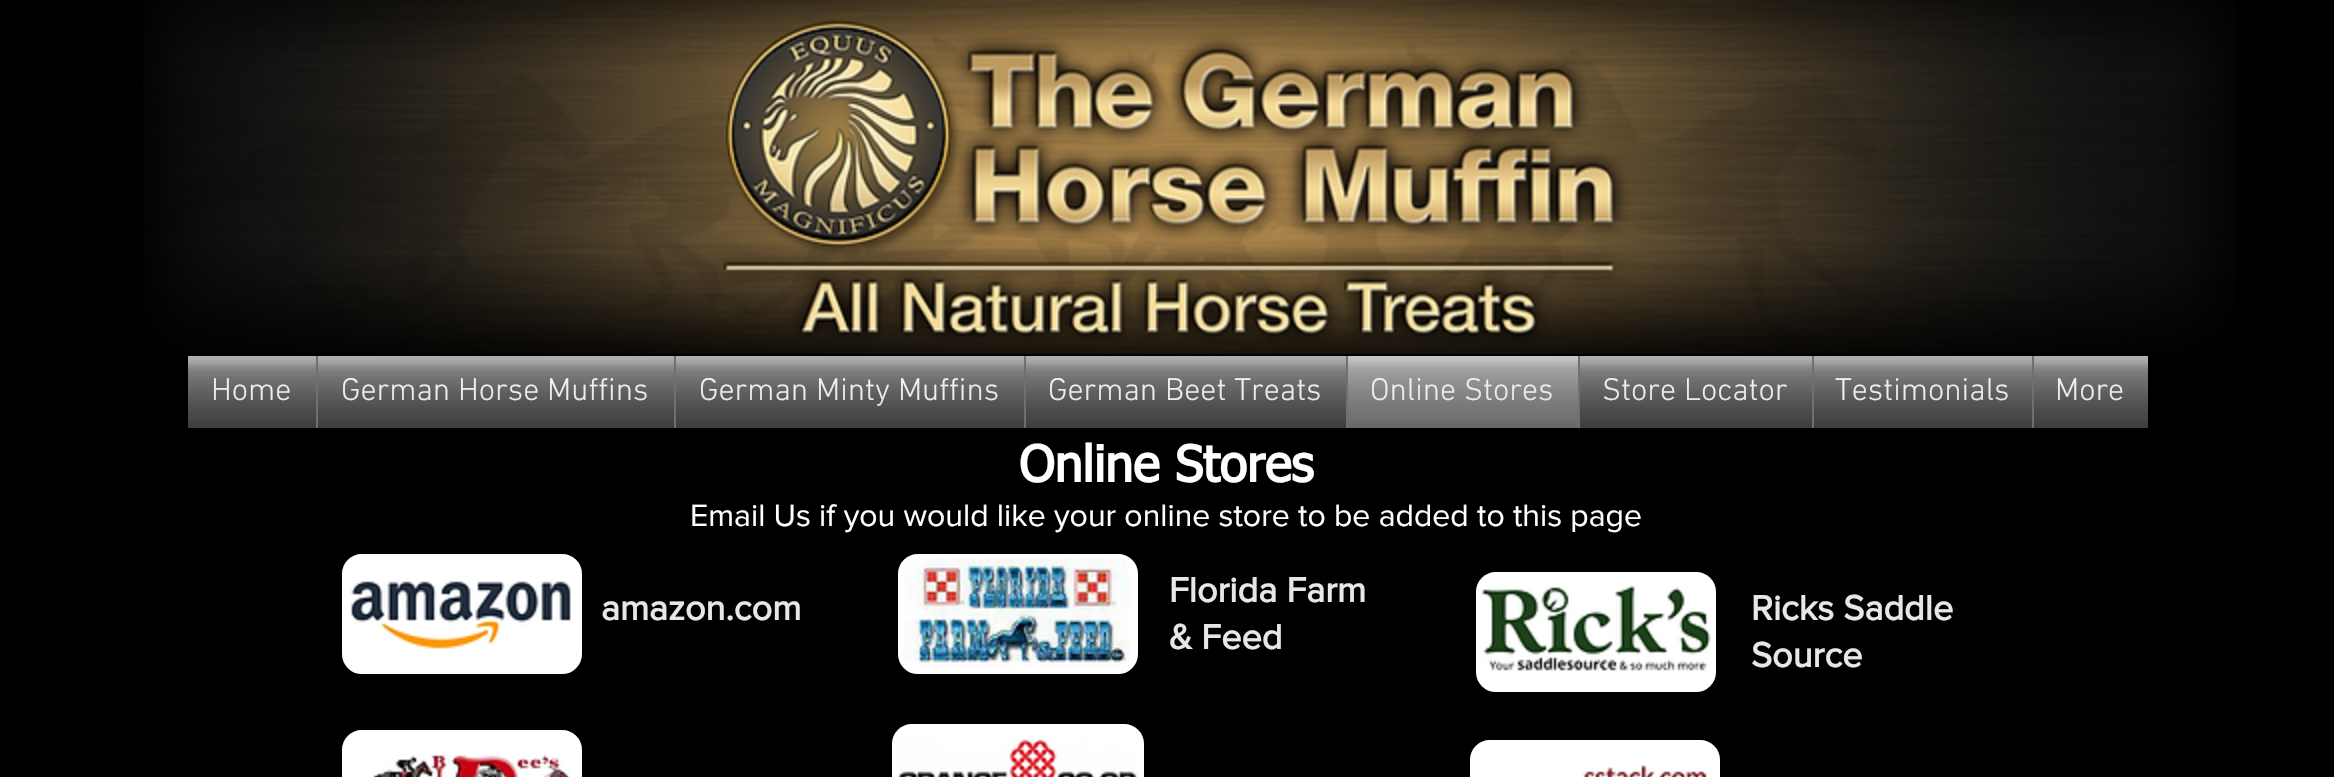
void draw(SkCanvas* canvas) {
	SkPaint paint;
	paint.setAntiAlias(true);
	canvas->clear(0xff000000);
	canvas->drawImageRect(SkImages::DeferredFromEncodedData(SkData::MakeFromFileName("img1.png")), SkRect::MakeXYWH(143, 0, 2094, 354), SkSamplingOptions());
	paint.setColor(0xff3b3b3b);
	canvas->drawRect(SkRect::MakeXYWH(188, 356, 128, 72), paint);
	SkFont f1(fontMgr->matchFamilyStyle("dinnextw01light", SkFontStyle(300, SkFontStyle::kNormal_Width, SkFontStyle::kUpright_Slant)), 32);
	f1.setSubpixel(true);
	paint.setColor(0xffffffff);
	canvas->drawString("Home", 211, 400, f1, paint);
	canvas->drawImageRect(SkImages::DeferredFromEncodedData(SkData::MakeFromFileName("img2.png")), SkRect::MakeXYWH(188, 356, 128, 72), SkSamplingOptions());
	canvas->drawImageRect(SkImages::DeferredFromEncodedData(SkData::MakeFromFileName("img3.png")), SkRect::MakeXYWH(188, 365, 128, 63), SkSamplingOptions());
	paint.setColor(0xff3b3b3b);
	canvas->drawRect(SkRect::MakeXYWH(318, 356, 356, 72), paint);
	paint.setColor(0xff707070);
	canvas->drawRect(SkRect::MakeXYWH(316, 356, 2, 72), paint);
	paint.setColor(0xffffffff);
	canvas->drawString("German Horse Muffins", 341, 400, f1, paint);
	canvas->drawImageRect(SkImages::DeferredFromEncodedData(SkData::MakeFromFileName("img4.png")), SkRect::MakeXYWH(318, 356, 356, 72), SkSamplingOptions());
	canvas->drawImageRect(SkImages::DeferredFromEncodedData(SkData::MakeFromFileName("img5.png")), SkRect::MakeXYWH(318, 365, 356, 63), SkSamplingOptions());
	paint.setColor(0xff3b3b3b);
	canvas->drawRect(SkRect::MakeXYWH(676, 356, 348, 72), paint);
	paint.setColor(0xff707070);
	canvas->drawRect(SkRect::MakeXYWH(674, 356, 2, 72), paint);
	paint.setColor(0xffffffff);
	canvas->drawString("German Minty Muffins", 699, 400, f1, paint);
	canvas->drawImageRect(SkImages::DeferredFromEncodedData(SkData::MakeFromFileName("img6.png")), SkRect::MakeXYWH(676, 356, 348, 72), SkSamplingOptions());
	canvas->drawImageRect(SkImages::DeferredFromEncodedData(SkData::MakeFromFileName("img7.png")), SkRect::MakeXYWH(676, 365, 348, 63), SkSamplingOptions());
	paint.setColor(0xff3b3b3b);
	canvas->drawRect(SkRect::MakeXYWH(1026, 356, 320, 72), paint);
	paint.setColor(0xff707070);
	canvas->drawRect(SkRect::MakeXYWH(1024, 356, 2, 72), paint);
	paint.setColor(0xffffffff);
	canvas->drawString("German Beet Treats", 1048, 400, f1, paint);
	canvas->drawImageRect(SkImages::DeferredFromEncodedData(SkData::MakeFromFileName("img8.png")), SkRect::MakeXYWH(1026, 356, 320, 72), SkSamplingOptions());
	canvas->drawImageRect(SkImages::DeferredFromEncodedData(SkData::MakeFromFileName("img9.png")), SkRect::MakeXYWH(1026, 365, 320, 63), SkSamplingOptions());
	paint.setColor(0xff707070);
	canvas->drawRect(SkRect::MakeXYWH(1346, 356, 234, 72), paint);
	paint.setColor(0xffffffff);
	canvas->drawString("Online Stores", 1370, 400, f1, paint);
	canvas->drawImageRect(SkImages::DeferredFromEncodedData(SkData::MakeFromFileName("img10.png")), SkRect::MakeXYWH(1348, 356, 230, 72), SkSamplingOptions());
	canvas->drawImageRect(SkImages::DeferredFromEncodedData(SkData::MakeFromFileName("img11.png")), SkRect::MakeXYWH(1348, 361, 230, 67), SkSamplingOptions());
	paint.setColor(0xff3b3b3b);
	canvas->drawRect(SkRect::MakeXYWH(1580, 356, 232, 72), paint);
	paint.setColor(0xffffffff);
	canvas->drawString("Store Locator", 1602, 400, f1, paint);
	canvas->drawImageRect(SkImages::DeferredFromEncodedData(SkData::MakeFromFileName("img12.png")), SkRect::MakeXYWH(1580, 356, 232, 72), SkSamplingOptions());
	canvas->drawImageRect(SkImages::DeferredFromEncodedData(SkData::MakeFromFileName("img13.png")), SkRect::MakeXYWH(1580, 365, 232, 63), SkSamplingOptions());
	paint.setColor(0xff3b3b3b);
	canvas->drawRect(SkRect::MakeXYWH(1814, 356, 218, 72), paint);
	paint.setColor(0xff707070);
	canvas->drawRect(SkRect::MakeXYWH(1812, 356, 2, 72), paint);
	paint.setColor(0xffffffff);
	canvas->drawString("Testimonials", 1835, 400, f1, paint);
	canvas->drawImageRect(SkImages::DeferredFromEncodedData(SkData::MakeFromFileName("img14.png")), SkRect::MakeXYWH(1814, 356, 218, 72), SkSamplingOptions());
	canvas->drawImageRect(SkImages::DeferredFromEncodedData(SkData::MakeFromFileName("img15.png")), SkRect::MakeXYWH(1814, 365, 218, 63), SkSamplingOptions());
	paint.setColor(0xff3b3b3b);
	canvas->drawRect(SkRect::MakeXYWH(2034, 356, 114, 72), paint);
	paint.setColor(0xff707070);
	canvas->drawRect(SkRect::MakeXYWH(2032, 356, 2, 72), paint);
	paint.setColor(0xffffffff);
	canvas->drawString("More", 2055, 400, f1, paint);
	canvas->drawImageRect(SkImages::DeferredFromEncodedData(SkData::MakeFromFileName("img16.png")), SkRect::MakeXYWH(2034, 356, 114, 72), SkSamplingOptions());
	canvas->drawImageRect(SkImages::DeferredFromEncodedData(SkData::MakeFromFileName("img17.png")), SkRect::MakeXYWH(2034, 365, 114, 63), SkSamplingOptions());
	SkFont f2(fontMgr->matchFamilyStyle("tahoma", SkFontStyle::Bold()), 50);
	f2.setSubpixel(true);
	canvas->drawString("Online Stores", 1019, 482, f2, paint);
	SkFont f3(fontMgr->matchFamilyStyle("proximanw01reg", SkFontStyle::Normal()), 32);
	f3.setSubpixel(true);
	canvas->drawString("Email Us if you would like your online store to be added to this page", 690, 526, f3, paint);
	canvas->drawRoundRect(SkRect::MakeXYWH(344, 556, 236, 116), 18, 18, paint);
	paint.setStroke(true);
	paint.setStrokeWidth(4);
	canvas->drawRoundRect(SkRect::MakeXYWH(344, 556, 236, 116), 18, 18, paint);
	canvas->drawImageRect(SkImages::DeferredFromEncodedData(SkData::MakeFromFileName("img18.png")), SkRect::MakeXYWH(350, 581, 221, 68), SkSamplingOptions());
	SkFont f4(fontMgr->matchFamilyStyle("proximanw01reg", SkFontStyle::Bold()), 36);
	f4.setSubpixel(true);
	paint.setStroke(false);
	paint.setColor(0xffe8e6e6);
	canvas->drawString("amazon.com", 601, 620, f4, paint);
	paint.setColor(0xffffffff);
	canvas->drawRoundRect(SkRect::MakeXYWH(900, 556, 236, 116), 18, 18, paint);
	paint.setStroke(true);
	canvas->drawRoundRect(SkRect::MakeXYWH(900, 556, 236, 116), 18, 18, paint);
	canvas->drawImageRect(SkImages::DeferredFromEncodedData(SkData::MakeFromFileName("img19.png")), SkRect::MakeXYWH(904, 558, 226, 108), SkSamplingOptions());
	paint.setStroke(false);
	paint.setColor(0xffe8e6e6);
	canvas->drawString("Florida Farm", 1169, 602, f4, paint);
	canvas->drawString("& Feed", 1169, 649, f4, paint);
	paint.setColor(0xffffffff);
	canvas->drawRoundRect(SkRect::MakeXYWH(1478, 574, 236, 116), 18, 18, paint);
	paint.setStroke(true);
	canvas->drawRoundRect(SkRect::MakeXYWH(1478, 574, 236, 116), 18, 18, paint);
	canvas->drawImageRect(SkImages::DeferredFromEncodedData(SkData::MakeFromFileName("img20.png")), SkRect::MakeXYWH(1481, 585, 230, 86), SkSamplingOptions());
	paint.setStroke(false);
	paint.setColor(0xffe8e6e6);
	canvas->drawString("Ricks Saddle", 1751, 620, f4, paint);
	canvas->drawString("Source", 1751, 667, f4, paint);
	paint.setColor(0xffffffff);
	canvas->drawRoundRect(SkRect::MakeXYWH(344, 732, 236, 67), 18, 18, paint);
	paint.setStroke(true);
	canvas->drawRoundRect(SkRect::MakeXYWH(344, 732, 236, 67), 18, 18, paint);
	canvas->drawImageRect(SkImages::DeferredFromEncodedData(SkData::MakeFromFileName("img21.png")), SkRect::MakeXYWH(373, 754, 196, 23), SkSamplingOptions());
	paint.setStroke(false);
	canvas->drawRoundRect(SkRect::MakeXYWH(894, 726, 248, 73), 18, 18, paint);
	paint.setStroke(true);
	canvas->drawRoundRect(SkRect::MakeXYWH(894, 726, 248, 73), 18, 18, paint);
	canvas->drawImageRect(SkImages::DeferredFromEncodedData(SkData::MakeFromFileName("img22.png")), SkRect::MakeXYWH(897, 739, 240, 38), SkSamplingOptions());
	paint.setStroke(false);
	canvas->drawRoundRect(SkRect::MakeXYWH(1472, 742, 246, 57), 18, 18, paint);
	paint.setStroke(true);
	canvas->drawRoundRect(SkRect::MakeXYWH(1472, 742, 246, 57), 18, 18, paint);
	canvas->drawImageRect(SkImages::DeferredFromEncodedData(SkData::MakeFromFileName("img23.png")), SkRect::MakeXYWH(1583, 765, 124, 12), SkSamplingOptions());
}
